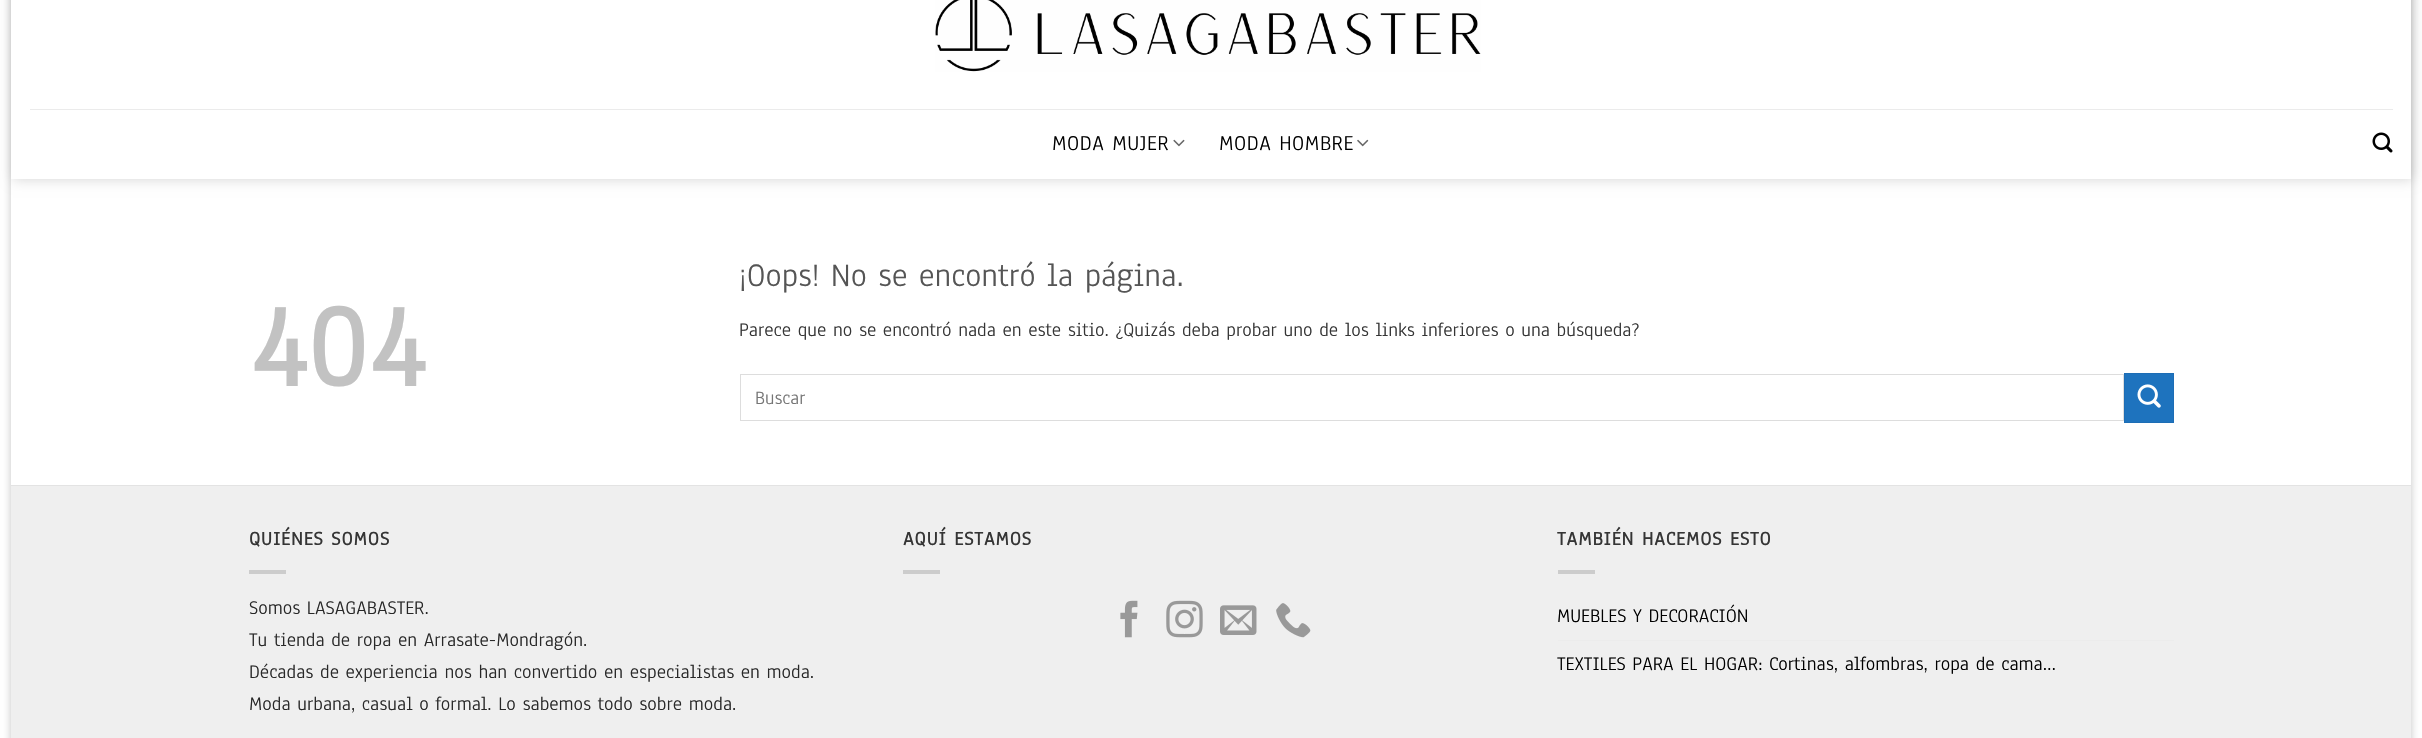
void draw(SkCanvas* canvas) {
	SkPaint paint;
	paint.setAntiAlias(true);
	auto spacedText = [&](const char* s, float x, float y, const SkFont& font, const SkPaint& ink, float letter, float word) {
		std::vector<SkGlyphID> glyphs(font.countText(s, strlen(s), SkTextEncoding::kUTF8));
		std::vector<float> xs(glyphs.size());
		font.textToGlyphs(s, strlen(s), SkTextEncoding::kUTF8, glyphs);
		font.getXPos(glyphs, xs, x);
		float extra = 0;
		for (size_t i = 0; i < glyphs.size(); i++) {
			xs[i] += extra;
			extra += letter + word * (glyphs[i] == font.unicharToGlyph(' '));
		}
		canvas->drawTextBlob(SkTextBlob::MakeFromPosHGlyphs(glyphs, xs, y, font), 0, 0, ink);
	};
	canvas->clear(0xffffffff);
	paint.setColor(0x3b000000);
	paint.setMaskFilter(SkMaskFilter::MakeBlur(kNormal_SkBlurStyle, 4));
	canvas->drawRect(SkRect::MakeXYWH(11, -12, 2400, 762), paint);
	paint.setMaskFilter(nullptr);
	paint.setColor(0xffffffff);
	canvas->drawRect(SkRect::MakeXYWH(11, 179, 2400, 306), paint);
	paint.setColor(0x26000000);
	paint.setMaskFilter(SkMaskFilter::MakeBlur(kNormal_SkBlurStyle, 6));
	canvas->drawRect(SkRect::MakeXYWH(13, -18, 2400, 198), paint);
	paint.setMaskFilter(nullptr);
	paint.setColor(0xffffffff);
	canvas->drawRect(SkRect::MakeXYWH(11, 0, 2400, 179), paint);
	canvas->drawImageRect(SkImages::DeferredFromEncodedData(SkData::MakeFromFileName("img1.png")), SkRect::MakeXYWH(935, 0, 546, 72), SkSamplingOptions());
	paint.setColor(0xffebebeb);
	canvas->drawRect(SkRect::MakeXYWH(30, 109, 2363, 1), paint);
	SkFont f1(fontMgr->matchFamilyStyle("Anaheim", SkFontStyle::Normal()), 22);
	f1.setSubpixel(true);
	paint.setColor(0xff000000);
	spacedText("MODA MUJER", 1052, 150, f1, paint, 0.5, 0);
	canvas->drawImageRect(SkImages::DeferredFromEncodedData(SkData::MakeFromFileName("img2.png")), SkRect::MakeXYWH(1173, 139, 12, 8), SkSamplingOptions());
	spacedText("MODA HOMBRE", 1219, 150, f1, paint, 0.5, 0);
	canvas->drawImageRect(SkImages::DeferredFromEncodedData(SkData::MakeFromFileName("img3.png")), SkRect::MakeXYWH(1357, 139, 12, 8), SkSamplingOptions());
	canvas->drawImageRect(SkImages::DeferredFromEncodedData(SkData::MakeFromFileName("img4.png")), SkRect::MakeXYWH(2372, 132, 21, 21), SkSamplingOptions());
	SkFont f2(fontMgr->matchFamilyStyle("Anaheim", SkFontStyle::Bold()), 120);
	f2.setSubpixel(true);
	paint.setColor(0xffc2c2c2);
	canvas->drawString("404", 249, 386, f2, paint);
	SkFont f3(fontMgr->matchFamilyStyle("Anaheim", SkFontStyle::Normal()), 34);
	f3.setSubpixel(true);
	paint.setColor(0xff555555);
	canvas->drawString("¡Oops! No se encontró la página.", 739, 286, f3, paint);
	SkFont f4(fontMgr->matchFamilyStyle("Anaheim", SkFontStyle::Normal()), 20);
	f4.setSubpixel(true);
	paint.setColor(0xff353535);
	canvas->drawString("Parece que no se encontró nada en este sitio. ¿Quizás deba probar uno de los links inferiores o una búsqueda?", 739, 336, f4, paint);
	paint.setStroke(true);
	paint.setStrokeWidth(1);
	paint.setColor(0xffdddddd);
	canvas->drawRect(SkRect::MakeXYWH(740.5, 374.5, 1383, 46), paint);
	SkFont f5(fontMgr->matchFamilyStyle("Anaheim", SkFontStyle::Normal()), 19.5);
	f5.setSubpixel(true);
	paint.setStroke(false);
	paint.setColor(0xff757575);
	canvas->drawString("Buscar", 755, 404, f5, paint);
	paint.setColor(0xff1e73be);
	canvas->drawRect(SkRect::MakeXYWH(2124.5, 373.5, 49, 49), paint);
	paint.setStroke(true);
	paint.setColor(0xff1d6db5);
	canvas->drawRect(SkRect::MakeXYWH(2124.5, 373.5, 49, 49), paint);
	canvas->drawImageRect(SkImages::DeferredFromEncodedData(SkData::MakeFromFileName("img5.png")), SkRect::MakeXYWH(2137, 384, 24, 24), SkSamplingOptions());
	paint.setStroke(false);
	paint.setColor(0xffefefef);
	canvas->drawRect(SkRect::MakeXYWH(11, 486, 2400, 252), paint);
	paint.setColor(0xffe3e3e3);
	canvas->drawRect(SkRect::MakeXYWH(11, 485, 2400, 1), paint);
	SkFont f6(fontMgr->matchFamilyStyle("Anaheim", SkFontStyle::Bold()), 20);
	f6.setSubpixel(true);
	paint.setColor(0xff353535);
	spacedText("QUIÉNES SOMOS", 249, 545, f6, paint, 1, 0);
	paint.setColor(0xffcccccc);
	canvas->drawRect(SkRect::MakeXYWH(249, 570, 37, 4), paint);
	paint.setColor(0xff282828);
	canvas->drawString("Somos LASAGABASTER.", 249, 614, f4, paint);
	canvas->drawString("Tu tienda de ropa en Arrasate-Mondragón.", 249, 646, f4, paint);
	canvas->drawString("Décadas de experiencia nos han convertido en especialistas en moda.", 249, 678, f4, paint);
	canvas->drawString("Moda urbana, casual o formal. Lo sabemos todo sobre moda.", 249, 710, f4, paint);
	paint.setColor(0xff353535);
	spacedText("AQUÍ ESTAMOS", 903, 545, f6, paint, 1, 0);
	paint.setColor(0xffcccccc);
	canvas->drawRect(SkRect::MakeXYWH(903, 570, 37, 4), paint);
	canvas->drawImageRect(SkImages::DeferredFromEncodedData(SkData::MakeFromFileName("img6.png")), SkRect::MakeXYWH(1120, 600, 18, 38), SkSamplingOptions());
	canvas->drawImageRect(SkImages::DeferredFromEncodedData(SkData::MakeFromFileName("img7.png")), SkRect::MakeXYWH(1166, 600, 37, 38), SkSamplingOptions());
	canvas->drawImageRect(SkImages::DeferredFromEncodedData(SkData::MakeFromFileName("img8.png")), SkRect::MakeXYWH(1220, 605, 37, 30), SkSamplingOptions());
	canvas->drawImageRect(SkImages::DeferredFromEncodedData(SkData::MakeFromFileName("img9.png")), SkRect::MakeXYWH(1276, 603, 35, 35), SkSamplingOptions());
	paint.setColor(0xff353535);
	spacedText("TAMBIÉN HACEMOS ESTO", 1557, 545, f6, paint, 1, 0);
	paint.setColor(0xffcccccc);
	canvas->drawRect(SkRect::MakeXYWH(1558, 570, 37, 4), paint);
	paint.setColor(0xff000000);
	canvas->drawString("MUEBLES Y DECORACIÓN", 1557, 622, f4, paint);
	paint.setColor(0xffececec);
	canvas->drawRect(SkRect::MakeXYWH(1558, 640, 616, 1), paint);
	paint.setColor(0xff000000);
	canvas->drawString("TEXTILES PARA EL HOGAR: Cortinas, alfombras, ropa de cama…", 1557, 670, f4, paint);
}
